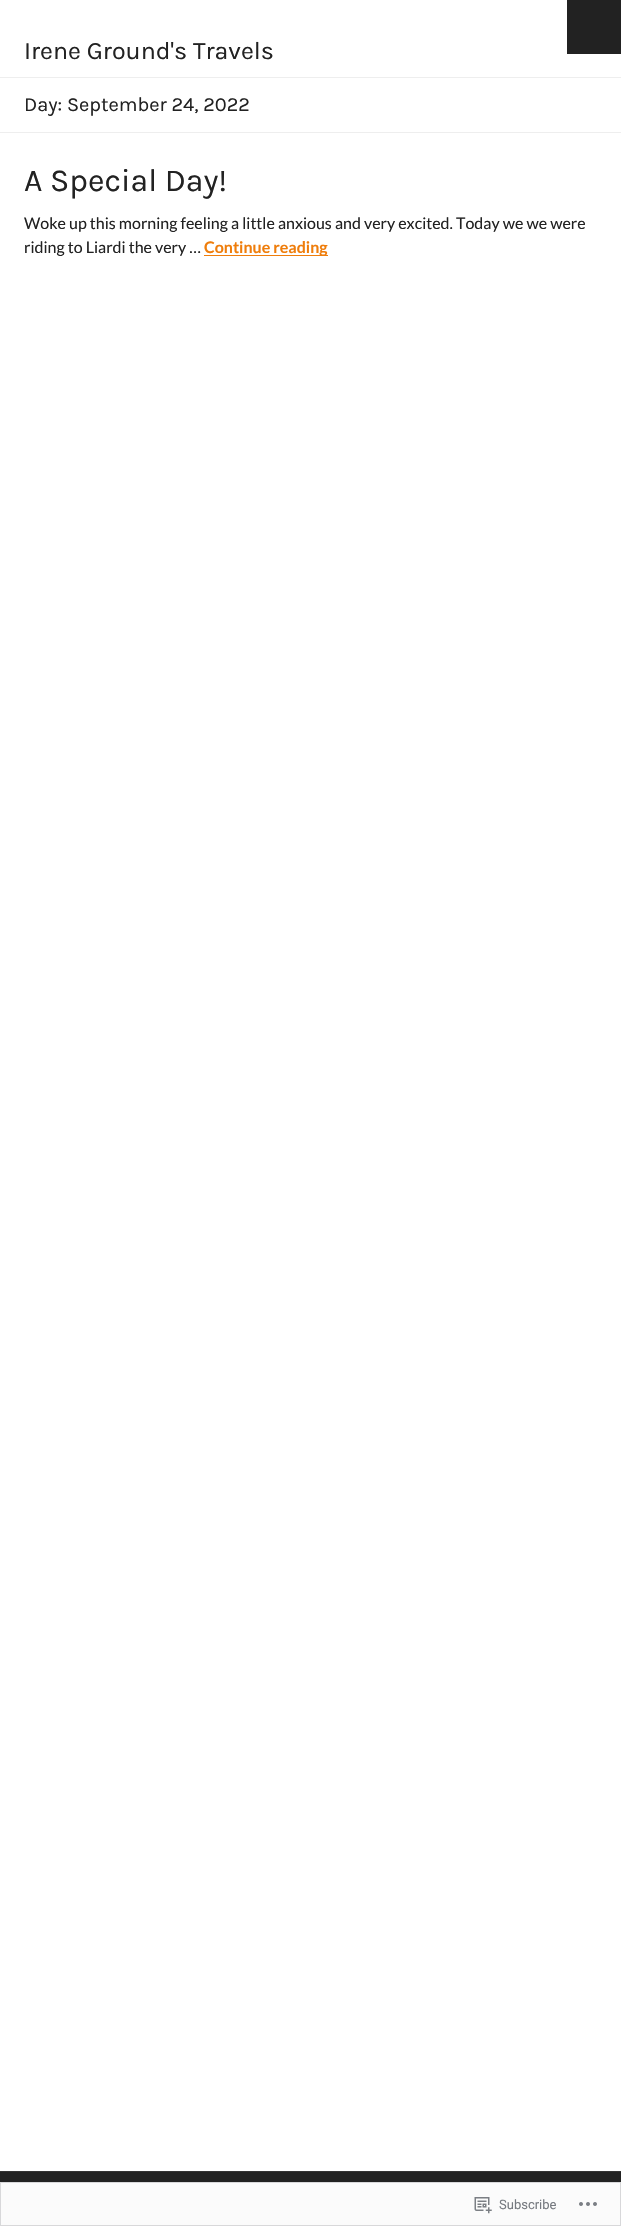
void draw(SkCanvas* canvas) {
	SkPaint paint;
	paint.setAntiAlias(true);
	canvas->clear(0xffffffff);
	paint.setColor(0xffeeeeee);
	canvas->drawRect(SkRect::MakeXYWH(0, 77, 621, 1), paint);
	SkFont f1(fontMgr->matchFamilyStyle("Karla", SkFontStyle::Normal()), 25);
	f1.setSubpixel(true);
	paint.setColor(0xff222222);
	canvas->drawString("Irene Ground's Travels", 24, 59, f1, paint);
	canvas->drawRect(SkRect::MakeXYWH(567, 0, 54, 54), paint);
	paint.setColor(0xffeeeeee);
	canvas->drawRect(SkRect::MakeXYWH(0, 132, 621, 1), paint);
	SkFont f2(fontMgr->matchFamilyStyle("Karla", SkFontStyle::Normal()), 20);
	f2.setSubpixel(true);
	paint.setColor(0xff222222);
	canvas->drawString("Day: September 24, 2022", 24, 111, f2, paint);
	SkFont f3(fontMgr->matchFamilyStyle("Karla", SkFontStyle::Normal()), 32);
	f3.setSubpixel(true);
	canvas->drawString("A Special Day!", 24, 191, f3, paint);
	SkFont f4(fontMgr->matchFamilyStyle("Lato", SkFontStyle::Normal()), 16);
	f4.setSubpixel(true);
	canvas->drawString("Woke up this morning feeling a little anxious and very excited. Today we we were", 24, 229, f4, paint);
	canvas->drawString("riding to Liardi the very …", 24, 253, f4, paint);
	paint.setColor(0xffef7d0b);
	canvas->drawRect(SkRect::MakeXYWH(204, 255, 124, 1), paint);
	SkFont f5(fontMgr->matchFamilyStyle("Lato", SkFontStyle::Bold()), 16);
	f5.setSubpixel(true);
	canvas->drawString("Continue reading", 204, 253, f5, paint);
	paint.setColor(0xff222222);
	canvas->drawRect(SkRect::MakeXYWH(0, 2172, 621, 53), paint);
	paint.setColor(0xff333333);
	canvas->drawRect(SkRect::MakeXYWH(0, 2171, 621, 1), paint);
	paint.setColor(0xfaffffff);
	canvas->drawRect(SkRect::MakeXYWH(0.5, 2182.5, 620, 43), paint);
	paint.setStroke(true);
	paint.setStrokeWidth(1);
	paint.setColor(0xffd8d8da);
	canvas->drawRect(SkRect::MakeXYWH(0.5, 2182.5, 620, 43), paint);
	canvas->drawImageRect(SkImages::DeferredFromEncodedData(SkData::MakeFromFileName("img1.png")), SkRect::MakeXYWH(474, 2197, 18, 17), SkSamplingOptions());
	SkFont f6(fontMgr->matchFamilyStyle("Roboto", SkFontStyle::Normal()), 13);
	f6.setSubpixel(true);
	paint.setStroke(false);
	paint.setColor(0xff767a80);
	canvas->drawString("Subscribe", 499, 2209, f6, paint);
	canvas->drawImageRect(SkImages::DeferredFromEncodedData(SkData::MakeFromFileName("img2.png")), SkRect::MakeXYWH(579, 2202, 18, 4), SkSamplingOptions());
}
